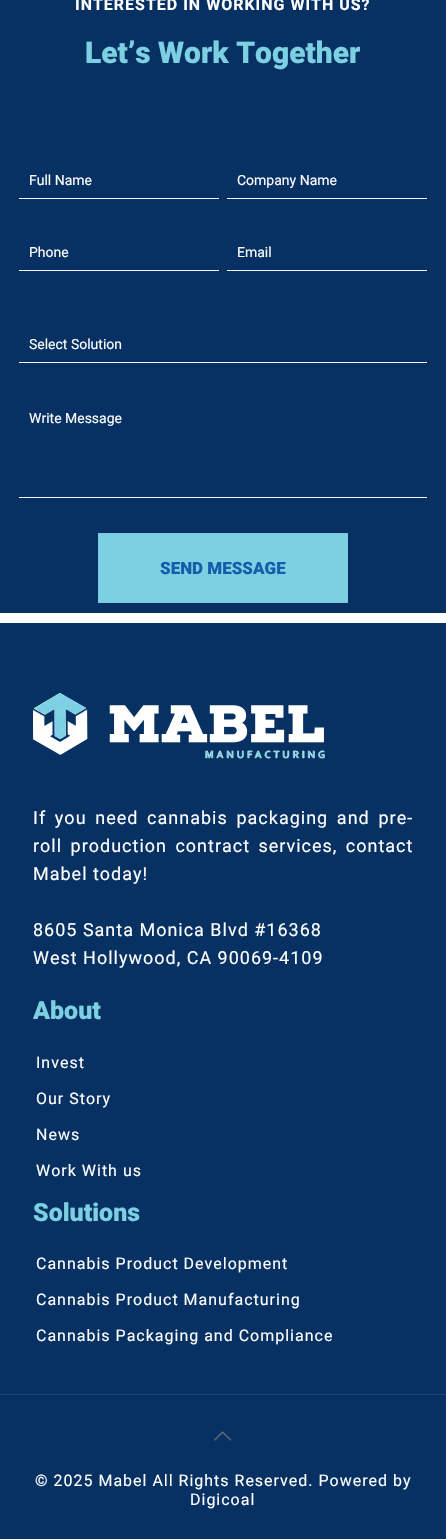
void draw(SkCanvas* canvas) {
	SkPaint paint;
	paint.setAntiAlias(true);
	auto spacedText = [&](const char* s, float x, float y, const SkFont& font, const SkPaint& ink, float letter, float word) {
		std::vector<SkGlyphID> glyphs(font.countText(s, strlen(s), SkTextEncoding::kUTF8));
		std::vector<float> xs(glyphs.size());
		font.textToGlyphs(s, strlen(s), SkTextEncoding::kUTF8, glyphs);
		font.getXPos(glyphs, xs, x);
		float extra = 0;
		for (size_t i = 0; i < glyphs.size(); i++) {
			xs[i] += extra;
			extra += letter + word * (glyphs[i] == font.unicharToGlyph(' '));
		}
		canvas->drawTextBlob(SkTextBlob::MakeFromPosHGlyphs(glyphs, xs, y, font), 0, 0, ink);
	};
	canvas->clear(0xffffffff);
	paint.setColor(0xff063162);
	canvas->drawRect(SkRect::MakeXYWH(0, 0, 446, 613), paint);
	SkFont f1(fontMgr->matchFamilyStyle("Roboto", SkFontStyle::Bold()), 16);
	f1.setSubpixel(true);
	paint.setColor(0xffffffff);
	spacedText("INTERESTED IN WORKING WITH US?", 75, 10, f1, paint, 1, 0);
	SkFont f2(fontMgr->matchFamilyStyle("Roboto", SkFontStyle(900, SkFontStyle::kNormal_Width, SkFontStyle::kUpright_Slant)), 30);
	f2.setSubpixel(true);
	paint.setColor(0xff7cd0e2);
	canvas->drawString("Let’s Work Together", 85, 63, f2, paint);
	paint.setColor(0xffffffff);
	canvas->drawRect(SkRect::MakeXYWH(19, 198, 200, 1), paint);
	SkFont f3(fontMgr->matchFamilyStyle("Roboto", SkFontStyle::Normal()), 14);
	f3.setSubpixel(true);
	canvas->drawString("Full Name", 29, 185, f3, paint);
	canvas->drawRect(SkRect::MakeXYWH(227, 198, 200, 1), paint);
	canvas->drawString("Company Name", 237, 185, f3, paint);
	canvas->drawRect(SkRect::MakeXYWH(19, 270, 200, 1), paint);
	canvas->drawString("Phone", 29, 257, f3, paint);
	canvas->drawRect(SkRect::MakeXYWH(227, 270, 200, 1), paint);
	canvas->drawString("Email", 237, 257, f3, paint);
	canvas->drawRect(SkRect::MakeXYWH(19, 362, 408, 1), paint);
	canvas->drawString("Select Solution", 29, 349, f3, paint);
	canvas->drawRect(SkRect::MakeXYWH(19, 497, 408, 1), paint);
	canvas->drawString("Write Message", 29, 423, f3, paint);
	paint.setColor(0xff7cd0e2);
	canvas->drawRect(SkRect::MakeXYWH(98.5, 533.5, 249, 69), paint);
	paint.setStroke(true);
	paint.setStrokeWidth(1);
	paint.setColor(0xff78cadb);
	canvas->drawRect(SkRect::MakeXYWH(98.5, 533.5, 249, 69), paint);
	SkFont f4(fontMgr->matchFamilyStyle("Roboto", SkFontStyle(900, SkFontStyle::kNormal_Width, SkFontStyle::kUpright_Slant)), 17);
	f4.setSubpixel(true);
	paint.setStroke(false);
	paint.setColor(0xff125eab);
	canvas->drawString("SEND MESSAGE", 160, 574, f4, paint);
	paint.setColor(0xff063162);
	canvas->drawRect(SkRect::MakeXYWH(0, 623, 446, 916), paint);
	canvas->drawImageRect(SkImages::DeferredFromEncodedData(SkData::MakeFromFileName("img1.png")), SkRect::MakeXYWH(33, 693, 292, 66), SkSamplingOptions());
	SkFont f5(fontMgr->matchFamilyStyle("Roboto", SkFontStyle::Normal()), 18);
	f5.setSubpixel(true);
	paint.setColor(0xffffffff);
	spacedText("If you need cannabis packaging and pre-", 33, 824, f5, paint, 1, 3.25);
	spacedText("roll production contract services, contact", 33, 852, f5, paint, 1, 3);
	spacedText("Mabel today!", 33, 880, f5, paint, 1, 0);
	spacedText("8605 Santa Monica Blvd #16368", 33, 936, f5, paint, 1, 0);
	spacedText("West Hollywood, CA 90069-4109", 33, 964, f5, paint, 1, 0);
	SkFont f6(fontMgr->matchFamilyStyle("Roboto", SkFontStyle(900, SkFontStyle::kNormal_Width, SkFontStyle::kUpright_Slant)), 25);
	f6.setSubpixel(true);
	paint.setColor(0xff7cd0e2);
	canvas->drawString("About", 33, 1019, f6, paint);
	SkFont f7(fontMgr->matchFamilyStyle("Roboto", SkFontStyle::Normal()), 16);
	f7.setSubpixel(true);
	paint.setColor(0xffffffff);
	spacedText("Invest", 36, 1068, f7, paint, 1, 0);
	spacedText("Our Story", 36, 1104, f7, paint, 1, 0);
	spacedText("News", 36, 1140, f7, paint, 1, 0);
	spacedText("Work With us", 36, 1176, f7, paint, 1, 0);
	paint.setColor(0xff7cd0e2);
	canvas->drawString("Solutions", 33, 1221, f6, paint);
	paint.setColor(0xffffffff);
	spacedText("Cannabis Product Development", 36, 1269, f7, paint, 1, 0);
	spacedText("Cannabis Product Manufacturing", 36, 1305, f7, paint, 1, 0);
	spacedText("Cannabis Packaging and Compliance", 36, 1341, f7, paint, 1, 0);
	paint.setColor(0xff1f4672);
	canvas->drawRect(SkRect::MakeXYWH(0, 1394, 446, 1), paint);
	canvas->drawImageRect(SkImages::DeferredFromEncodedData(SkData::MakeFromFileName("img2.png")), SkRect::MakeXYWH(214, 1431, 18, 10), SkSamplingOptions());
	paint.setColor(0xffffffff);
	spacedText("© 2025 Mabel All Rights Reserved. Powered by", 35, 1486, f7, paint, 1, 0);
	spacedText("Digicoal", 190, 1505, f7, paint, 1, 0);
}
